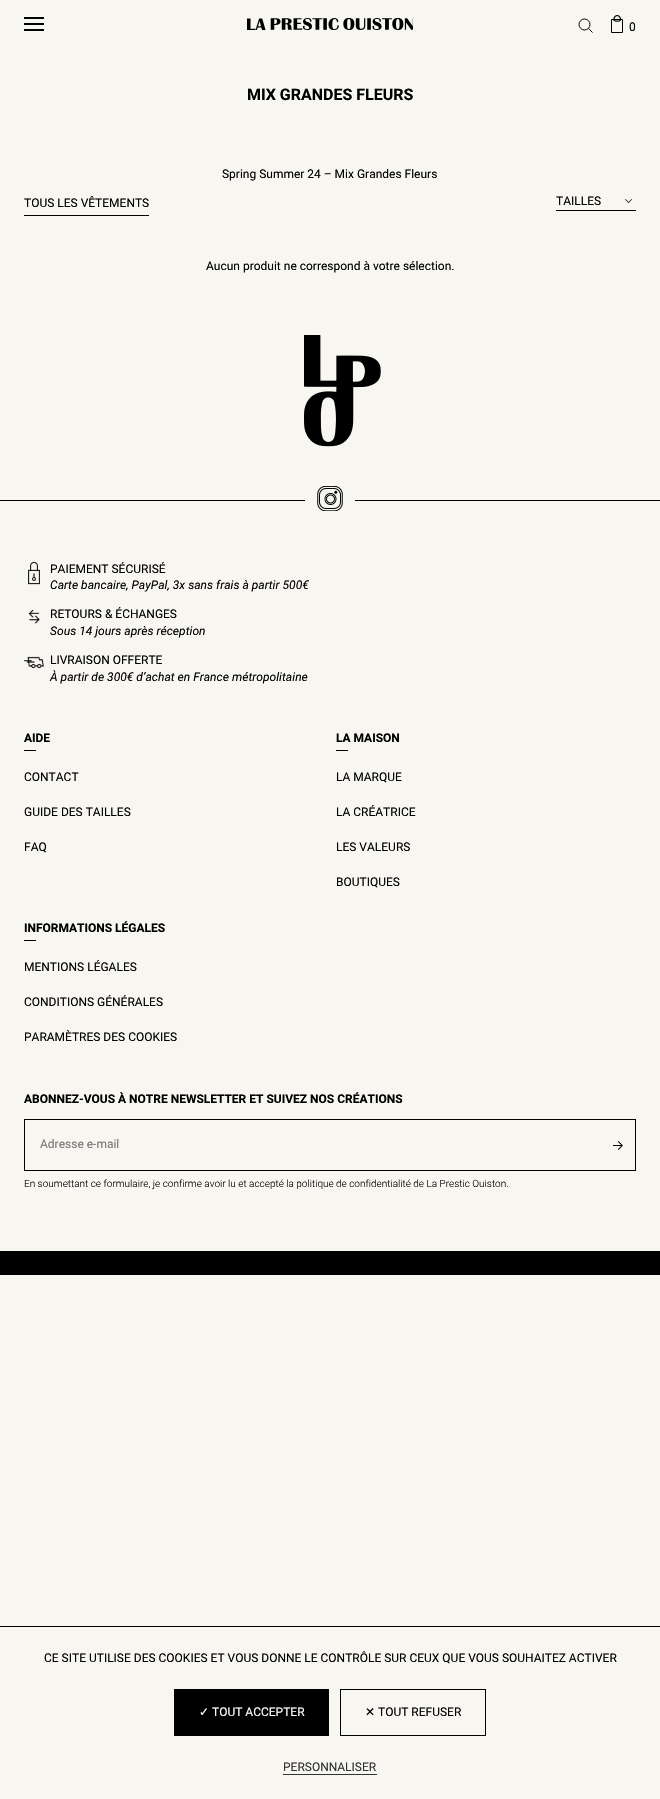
void draw(SkCanvas* canvas) {
	SkPaint paint;
	paint.setAntiAlias(true);
	auto svgPath = [&](const char* data, bool evenOdd = false) {
		SkPath result = *SkParsePath::FromSVGString(data);
		if (evenOdd) result.setFillType(SkPathFillType::kEvenOdd);
		return result;
	};
	canvas->clear(0xfff8f6f0);
	paint.setColor(0xff000000);
	canvas->drawRect(SkRect::MakeXYWH(24, 23, 20, 2), paint);
	canvas->drawRect(SkRect::MakeXYWH(24, 17, 20, 2), paint);
	canvas->drawRect(SkRect::MakeXYWH(24, 29, 20, 2), paint);
	canvas->drawImageRect(SkImages::DeferredFromEncodedData(SkData::MakeFromFileName("img1.png")), SkRect::MakeXYWH(247, 18, 166, 12), SkSamplingOptions());
	paint.setStroke(true);
	paint.setStrokeWidth(1);
	canvas->drawCircle(584.5, 24.5, 5.5, paint);
	canvas->drawPath(svgPath("M588.5 28.5L592.5 32.5"), paint);
	canvas->drawImageRect(SkImages::DeferredFromEncodedData(SkData::MakeFromFileName("img2.png")), SkRect::MakeXYWH(611, 15, 12, 18), SkSamplingOptions());
	SkFont f1(fontMgr->matchFamilyStyle("Roboto", SkFontStyle::Normal()), 12);
	f1.setSubpixel(true);
	paint.setStroke(false);
	canvas->drawString("0", 629, 31, f1, paint);
	SkFont f2(fontMgr->matchFamilyStyle("Roboto", SkFontStyle::Bold()), 16);
	f2.setSubpixel(true);
	canvas->drawString("MIX GRANDES FLEURS", 247, 100, f2, paint);
	canvas->drawString("Spring Summer 24 – Mix Grandes Fleurs", 222, 178, f1, paint);
	canvas->drawRect(SkRect::MakeXYWH(24, 215, 125, 1), paint);
	canvas->drawString("TOUS LES VÊTEMENTS", 24, 207, f1, paint);
	canvas->drawRect(SkRect::MakeXYWH(556, 210, 80, 1), paint);
	canvas->drawString("TAILLES", 556, 205, f1, paint);
	canvas->drawPath(svgPath("M631.5 199L632 199.5L628.5 203L628 202.5Z"), paint);
	canvas->drawPath(svgPath("M625.5 199L629 202.5L628.5 203L625 199.5Z"), paint);
	canvas->drawString("Aucun produit ne correspond à votre sélection.", 206, 270, f1, paint);
	canvas->drawImageRect(SkImages::DeferredFromEncodedData(SkData::MakeFromFileName("img3.png")), SkRect::MakeXYWH(304, 335, 77, 112), SkSamplingOptions());
	canvas->drawRect(SkRect::MakeXYWH(0, 500, 660, 1), paint);
	canvas->drawRect(SkRect::MakeXYWH(0, 1251, 660, 24), paint);
	paint.setColor(0xfff8f6f0);
	canvas->drawRect(SkRect::MakeXYWH(305, 500, 50, 1), paint);
	canvas->drawImageRect(SkImages::DeferredFromEncodedData(SkData::MakeFromFileName("img4.png")), SkRect::MakeXYWH(317, 486, 26, 25), SkSamplingOptions());
	canvas->drawImageRect(SkImages::DeferredFromEncodedData(SkData::MakeFromFileName("img5.png")), SkRect::MakeXYWH(28, 561, 12, 24), SkSamplingOptions());
	paint.setColor(0xff000000);
	canvas->drawString("PAIEMENT SÉCURISÉ", 50, 573, f1, paint);
	SkFont f3(fontMgr->matchFamilyStyle("Roboto", SkFontStyle::Italic()), 12);
	f3.setSubpixel(true);
	canvas->drawString("Carte bancaire, PayPal, 3x sans frais à partir 500€", 50, 589, f3, paint);
	canvas->drawImageRect(SkImages::DeferredFromEncodedData(SkData::MakeFromFileName("img6.png")), SkRect::MakeXYWH(28, 609, 12, 15), SkSamplingOptions());
	canvas->drawString("RETOURS & ÉCHANGES", 50, 618, f1, paint);
	canvas->drawString("Sous 14 jours après réception", 50, 635, f3, paint);
	canvas->drawImageRect(SkImages::DeferredFromEncodedData(SkData::MakeFromFileName("img7.png")), SkRect::MakeXYWH(24, 656, 20, 13), SkSamplingOptions());
	canvas->drawString("LIVRAISON OFFERTE", 50, 664, f1, paint);
	canvas->drawString("À partir de 300€ d’achat en France métropolitaine", 50, 681, f3, paint);
	SkFont f4(fontMgr->matchFamilyStyle("Roboto", SkFontStyle::Bold()), 12);
	f4.setSubpixel(true);
	canvas->drawString("AIDE", 24, 742, f4, paint);
	canvas->drawRect(SkRect::MakeXYWH(24, 750, 12, 1), paint);
	canvas->drawString("CONTACT", 24, 781, f1, paint);
	canvas->drawString("GUIDE DES TAILLES", 24, 816, f1, paint);
	canvas->drawString("FAQ", 24, 851, f1, paint);
	canvas->drawString("LA MAISON", 336, 742, f4, paint);
	canvas->drawRect(SkRect::MakeXYWH(336, 750, 12, 1), paint);
	canvas->drawString("LA MARQUE", 336, 781, f1, paint);
	canvas->drawString("LA CRÉATRICE", 336, 816, f1, paint);
	canvas->drawString("LES VALEURS", 336, 851, f1, paint);
	canvas->drawString("BOUTIQUES", 336, 886, f1, paint);
	canvas->drawString("INFORMATIONS LÉGALES", 24, 932, f4, paint);
	canvas->drawRect(SkRect::MakeXYWH(24, 940, 12, 1), paint);
	canvas->drawString("MENTIONS LÉGALES", 24, 971, f1, paint);
	canvas->drawString("CONDITIONS GÉNÉRALES", 24, 1006, f1, paint);
	canvas->drawString("PARAMÈTRES DES COOKIES", 24, 1041, f1, paint);
	canvas->drawString("ABONNEZ-VOUS À NOTRE NEWSLETTER ET SUIVEZ NOS CRÉATIONS", 24, 1103, f4, paint);
	paint.setStroke(true);
	canvas->drawRect(SkRect::MakeXYWH(24.5, 1119.5, 611, 51), paint);
	paint.setStroke(false);
	paint.setColor(0xff757575);
	canvas->drawString("Adresse e-mail", 40, 1148, f1, paint);
	canvas->drawImageRect(SkImages::DeferredFromEncodedData(SkData::MakeFromFileName("img8.png")), SkRect::MakeXYWH(613, 1141, 10, 9), SkSamplingOptions());
	SkFont f5(fontMgr->matchFamilyStyle("Roboto", SkFontStyle(300, SkFontStyle::kNormal_Width, SkFontStyle::kUpright_Slant)), 10);
	f5.setSubpixel(true);
	paint.setColor(0xff000000);
	canvas->drawString("En soumettant ce formulaire, je confirme avoir lu et accepté la politique de confidentialité de La Prestic Ouiston.", 24, 1187, f5, paint);
	canvas->drawRect(SkRect::MakeXYWH(0, 1626, 660, 1), paint);
	canvas->drawString("CE SITE UTILISE DES COOKIES ET VOUS DONNE LE CONTRÔLE SUR CEUX QUE VOUS SOUHAITEZ ACTIVER", 44, 1662, f1, paint);
	canvas->drawRect(SkRect::MakeXYWH(174, 1689, 155, 47), paint);
	SkFont f6(fontMgr->matchFamilyStyle("DejaVu Sans", SkFontStyle::Normal()), 12);
	f6.setSubpixel(true);
	paint.setColor(0xffffffff);
	canvas->drawString("✓", 199, 1716, f6, paint);
	canvas->drawString("TOUT ACCEPTER", 212, 1716, f1, paint);
	paint.setStroke(true);
	paint.setColor(0xff000000);
	canvas->drawRect(SkRect::MakeXYWH(340.5, 1689.5, 145, 46), paint);
	paint.setStroke(false);
	canvas->drawString("✕", 365, 1716, f6, paint);
	canvas->drawString("TOUT REFUSER", 378, 1716, f1, paint);
	paint.setColor(0xff333333);
	canvas->drawRect(SkRect::MakeXYWH(283, 1774, 94, 1), paint);
	canvas->drawString("PERSONNALISER", 283, 1771, f1, paint);
}
